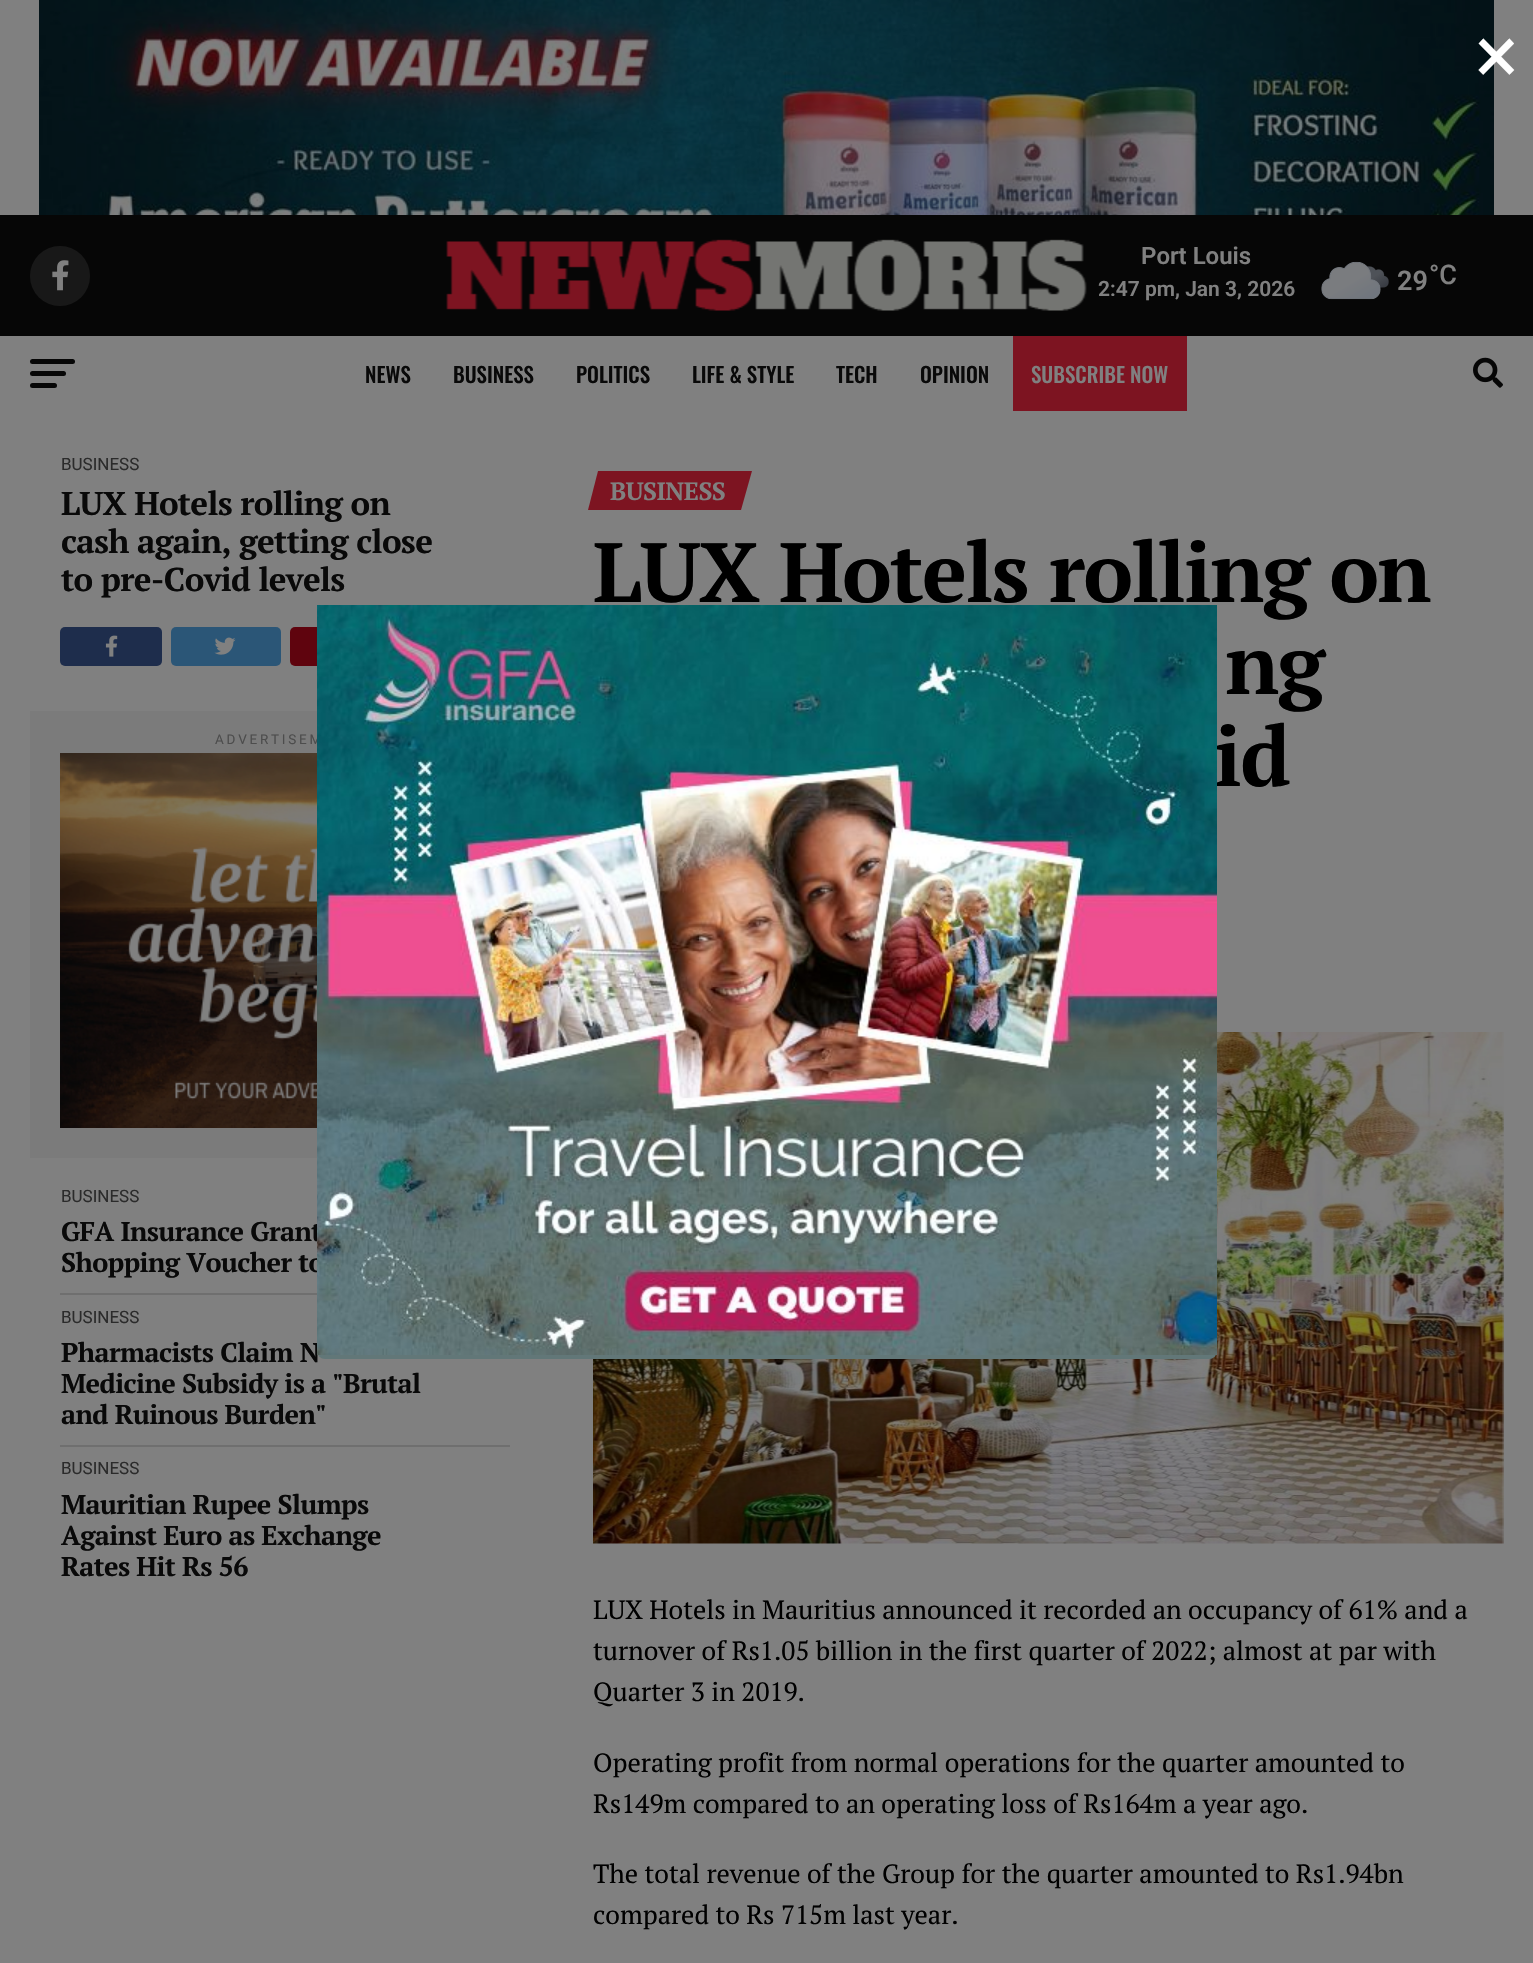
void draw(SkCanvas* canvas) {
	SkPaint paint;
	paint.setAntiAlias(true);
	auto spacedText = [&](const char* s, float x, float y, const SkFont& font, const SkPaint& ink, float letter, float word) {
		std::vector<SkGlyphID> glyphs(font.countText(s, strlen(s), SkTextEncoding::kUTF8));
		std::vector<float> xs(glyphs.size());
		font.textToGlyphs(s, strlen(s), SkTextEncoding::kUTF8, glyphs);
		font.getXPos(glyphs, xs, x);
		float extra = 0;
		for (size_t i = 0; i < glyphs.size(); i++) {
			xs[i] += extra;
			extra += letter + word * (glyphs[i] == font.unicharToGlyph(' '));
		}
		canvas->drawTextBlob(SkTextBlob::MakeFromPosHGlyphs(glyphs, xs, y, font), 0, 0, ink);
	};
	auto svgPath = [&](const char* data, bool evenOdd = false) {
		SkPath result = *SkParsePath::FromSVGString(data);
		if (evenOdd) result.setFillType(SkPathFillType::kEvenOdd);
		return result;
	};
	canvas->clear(0xff808080);
	paint.setColor(0xff5f040e);
	canvas->drawRoundRect(SkRect::MakeXYWH(290, 627, 103, 39), 5, 5, paint);
	paint.setColor(0xff7b7b7b);
	canvas->drawRect(SkRect::MakeXYWH(30, 711, 287, 447), paint);
	SkFont f1(fontMgr->matchFamilyStyle("Roboto", SkFontStyle::Normal()), 13.5);
	f1.setSubpixel(true);
	paint.setColor(0xff4d4d4d);
	spacedText("ADVERTISEM", 215, 744, f1, paint, 2.75, 0);
	SkFont f2(fontMgr->matchFamilyStyle("PT Serif", SkFontStyle::Bold()), 27);
	f2.setSubpixel(true);
	paint.setColor(0xff090909);
	spacedText("GFA Insurance Grant", 61, 1241, f2, paint, -0.55, 0);
	spacedText("Shopping Voucher to", 61, 1272, f2, paint, -0.55, 0);
	spacedText("Pharmacists Claim N", 61, 1362, f2, paint, -0.55, 0);
	SkFont f3(fontMgr->matchFamilyStyle("PT Serif", SkFontStyle::Bold()), 84);
	f3.setSubpixel(true);
	paint.setColor(0xff000000);
	spacedText("LUX Hotels rolling on", 593, 602, f3, paint, -1.7, 0);
	spacedText("id", 1214, 786, f3, paint, -1.7, 0);
	canvas->drawImageRect(SkImages::DeferredFromEncodedData(SkData::MakeFromFileName("img10.png")), SkRect::MakeXYWH(593, 1032, 911, 512), SkSamplingOptions());
	paint.setColor(0xff627778);
	canvas->drawRoundRect(SkRect::MakeXYWH(317, 605, 900, 754), 8, 8, paint);
	canvas->drawImageRect(SkImages::DeferredFromEncodedData(SkData::MakeFromFileName("img2.png")), SkRect::MakeXYWH(39, 0, 1455, 215), SkSamplingOptions());
	SkFont f4(fontMgr->matchFamilyStyle("Roboto", SkFontStyle::Normal()), 81);
	f4.setSubpixel(true);
	paint.setColor(0xffffffff);
	canvas->drawString("×", 1475, 83, f4, paint);
	canvas->drawImageRect(SkImages::DeferredFromEncodedData(SkData::MakeFromFileName("img1.png")), SkRect::MakeXYWH(317, 605, 900, 750), SkSamplingOptions());
	paint.setColor(0xff060606);
	canvas->drawRect(SkRect::MakeXYWH(0, 215, 1533, 121), paint);
	paint.setColor(0xff181818);
	canvas->drawCircle(60, 276, 30, paint);
	canvas->drawImageRect(SkImages::DeferredFromEncodedData(SkData::MakeFromFileName("img3.png")), SkRect::MakeXYWH(52, 260, 17, 31), SkSamplingOptions());
	canvas->drawImageRect(SkImages::DeferredFromEncodedData(SkData::MakeFromFileName("img4.png")), SkRect::MakeXYWH(446, 239, 641, 72), SkSamplingOptions());
	SkFont f5(fontMgr->matchFamilyStyle("Roboto", SkFontStyle(600, SkFontStyle::kNormal_Width, SkFontStyle::kUpright_Slant)), 24);
	f5.setSubpixel(true);
	paint.setColor(0xff808080);
	canvas->drawString("Port Louis", 1141, 264, f5, paint);
	SkFont f6(fontMgr->matchFamilyStyle("Roboto", SkFontStyle(600, SkFontStyle::kNormal_Width, SkFontStyle::kUpright_Slant)), 21);
	f6.setSubpixel(true);
	canvas->drawString("2:47 pm, Jan 3, 2026", 1098, 296, f6, paint);
	canvas->drawImageRect(SkImages::DeferredFromEncodedData(SkData::MakeFromFileName("img5.png")), SkRect::MakeXYWH(1321, 261, 68, 39), SkSamplingOptions());
	SkFont f7(fontMgr->matchFamilyStyle("Roboto", SkFontStyle(600, SkFontStyle::kNormal_Width, SkFontStyle::kUpright_Slant)), 27);
	f7.setSubpixel(true);
	canvas->drawString("29", 1397, 290, f7, paint);
	SkFont f8(fontMgr->matchFamilyStyle("Roboto", SkFontStyle(500, SkFontStyle::kNormal_Width, SkFontStyle::kUpright_Slant)), 27);
	f8.setSubpixel(true);
	canvas->drawString("°C", 1429, 284, f8, paint);
	paint.setColor(0xff060606);
	canvas->drawRoundRect(SkRect::MakeXYWH(30, 359, 45, 5), 2.5, 2.5, paint);
	canvas->drawRoundRect(SkRect::MakeXYWH(30, 371, 36, 5), 2.5, 2.5, paint);
	canvas->drawRoundRect(SkRect::MakeXYWH(30, 383, 27, 5), 2.5, 2.5, paint);
	SkFont f9(fontMgr->matchFamilyStyle("Oswald", SkFontStyle(500, SkFontStyle::kNormal_Width, SkFontStyle::kUpright_Slant)), 21);
	f9.setSubpixel(true);
	paint.setColor(0xff090909);
	canvas->drawString("NEWS", 365, 383, f9, paint);
	canvas->drawString("BUSINESS", 453, 383, f9, paint);
	canvas->drawString("POLITICS", 576, 383, f9, paint);
	canvas->drawString("LIFE & STYLE", 692, 383, f9, paint);
	canvas->drawString("TECH", 836, 383, f9, paint);
	canvas->drawString("OPINION", 920, 383, f9, paint);
	paint.setColor(0xff7d1421);
	canvas->drawRect(SkRect::MakeXYWH(1013, 336, 174, 75), paint);
	paint.setColor(0xff808080);
	canvas->drawString("SUBSCRIBE NOW", 1031, 383, f9, paint);
	canvas->drawImageRect(SkImages::DeferredFromEncodedData(SkData::MakeFromFileName("img6.png")), SkRect::MakeXYWH(1473, 357, 30, 31), SkSamplingOptions());
	SkFont f10(fontMgr->matchFamilyStyle("Roboto", SkFontStyle::Normal()), 17);
	f10.setSubpixel(true);
	paint.setColor(0xff2b2b2b);
	canvas->drawString("BUSINESS", 61, 470, f10, paint);
	SkFont f11(fontMgr->matchFamilyStyle("PT Serif", SkFontStyle::Bold()), 33);
	f11.setSubpixel(true);
	paint.setColor(0xff090909);
	spacedText("LUX Hotels rolling on", 61, 515, f11, paint, -0.65, 0);
	spacedText("cash again, getting close", 61, 553, f11, paint, -0.65, 0);
	spacedText("to pre-Covid levels", 61, 591, f11, paint, -0.65, 0);
	paint.setColor(0xff1e2d4c);
	canvas->drawRoundRect(SkRect::MakeXYWH(60, 627, 102, 39), 5, 5, paint);
	canvas->drawImageRect(SkImages::DeferredFromEncodedData(SkData::MakeFromFileName("img7.png")), SkRect::MakeXYWH(105, 635, 13, 22), SkSamplingOptions());
	paint.setColor(0xff2b5677);
	canvas->drawRoundRect(SkRect::MakeXYWH(171, 627, 110, 39), 5, 5, paint);
	canvas->drawImageRect(SkImages::DeferredFromEncodedData(SkData::MakeFromFileName("img8.png")), SkRect::MakeXYWH(214, 637, 22, 18), SkSamplingOptions());
	canvas->drawImageRect(SkImages::DeferredFromEncodedData(SkData::MakeFromFileName("img9.png")), SkRect::MakeXYWH(60, 753, 257, 375), SkSamplingOptions());
	paint.setColor(0xff6f6f6f);
	canvas->drawRect(SkRect::MakeXYWH(60, 1293, 257, 2), paint);
	paint.setColor(0xff2b2b2b);
	canvas->drawString("BUSINESS", 61, 1202, f10, paint);
	paint.setColor(0xff6f6f6f);
	canvas->drawRect(SkRect::MakeXYWH(60, 1445, 450, 2), paint);
	paint.setColor(0xff2b2b2b);
	canvas->drawString("BUSINESS", 61, 1323, f10, paint);
	paint.setColor(0xff090909);
	spacedText("Medicine Subsidy is a \"Brutal", 61, 1393, f2, paint, -0.55, 0);
	spacedText("and Ruinous Burden\"", 61, 1424, f2, paint, -0.55, 0);
	paint.setColor(0xff2b2b2b);
	canvas->drawString("BUSINESS", 61, 1474, f10, paint);
	paint.setColor(0xff090909);
	spacedText("Mauritian Rupee Slumps", 61, 1514, f2, paint, -0.55, 0);
	spacedText("Against Euro as Exchange", 61, 1545, f2, paint, -0.55, 0);
	spacedText("Rates Hit Rs 56", 61, 1576, f2, paint, -0.55, 0);
	paint.setColor(0xff7d1421);
	canvas->drawPath(svgPath("M598 471H752L741 510H588Z"), paint);
	SkFont f12(fontMgr->matchFamilyStyle("PT Serif", SkFontStyle::Bold()), 25);
	f12.setSubpixel(true);
	paint.setColor(0xff808080);
	spacedText("BUSINESS", 610, 500, f12, paint, -0.5, 0);
	paint.setColor(0xff000000);
	spacedText("ng", 1225, 694, f3, paint, -1.7, 0);
	SkFont f13(fontMgr->matchFamilyStyle("PT Serif", SkFontStyle::Normal()), 26.4);
	f13.setSubpixel(true);
	canvas->drawString("LUX Hotels in Mauritius announced it recorded an occupancy of 61% and a", 593, 1619, f13, paint);
	canvas->drawString("turnover of Rs1.05 billion in the first quarter of 2022; almost at par with", 593, 1660, f13, paint);
	canvas->drawString("Quarter 3 in 2019.", 593, 1701, f13, paint);
	canvas->drawString("Operating profit from normal operations for the quarter amounted to", 593, 1772, f13, paint);
	canvas->drawString("Rs149m compared to an operating loss of Rs164m a year ago.", 593, 1813, f13, paint);
	canvas->drawString("The total revenue of the Group for the quarter amounted to Rs1.94bn", 593, 1883, f13, paint);
	canvas->drawString("compared to Rs 715m last year.", 593, 1924, f13, paint);
}
